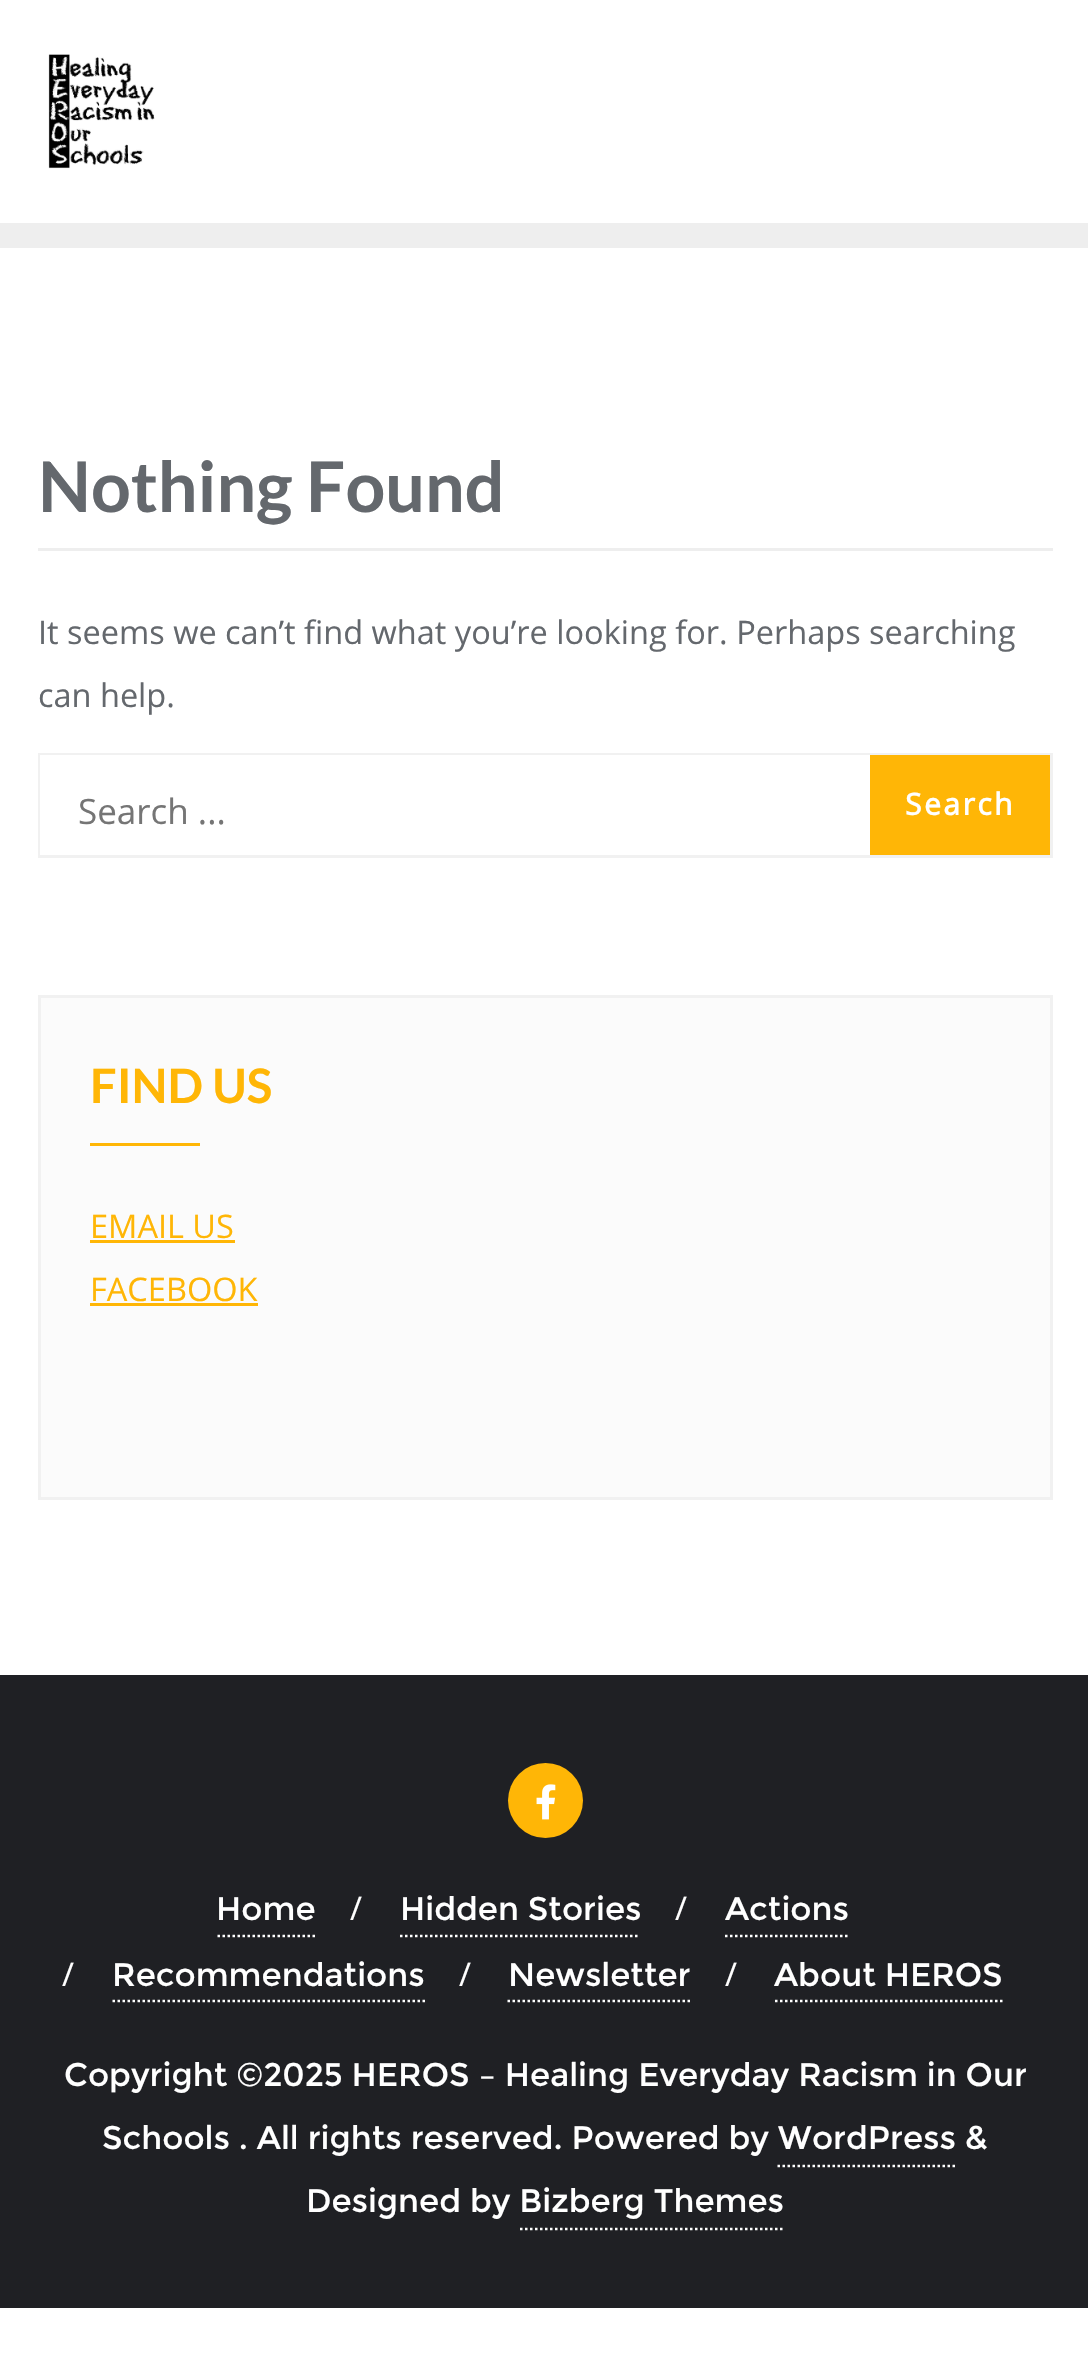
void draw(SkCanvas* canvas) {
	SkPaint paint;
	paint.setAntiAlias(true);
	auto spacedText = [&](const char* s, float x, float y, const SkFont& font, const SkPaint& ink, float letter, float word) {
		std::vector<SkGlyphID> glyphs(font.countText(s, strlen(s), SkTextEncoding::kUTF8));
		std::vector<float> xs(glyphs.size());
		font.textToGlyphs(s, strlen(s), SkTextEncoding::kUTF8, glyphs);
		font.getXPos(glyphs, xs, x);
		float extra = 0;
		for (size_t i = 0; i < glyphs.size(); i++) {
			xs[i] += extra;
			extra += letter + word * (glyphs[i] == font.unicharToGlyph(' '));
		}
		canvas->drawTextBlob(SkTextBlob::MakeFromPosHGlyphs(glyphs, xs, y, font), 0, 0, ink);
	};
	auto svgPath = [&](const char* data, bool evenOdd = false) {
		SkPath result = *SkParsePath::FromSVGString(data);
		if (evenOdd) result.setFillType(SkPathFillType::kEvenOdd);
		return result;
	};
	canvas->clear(0xffffffff);
	paint.setColor(0xffeeeeee);
	canvas->drawRect(SkRect::MakeXYWH(0, 223, 1088, 25), paint);
	canvas->drawImageRect(SkImages::DeferredFromEncodedData(SkData::MakeFromFileName("img1.png")), SkRect::MakeXYWH(48, 54, 107, 115), SkSamplingOptions());
	canvas->drawRect(SkRect::MakeXYWH(38, 548, 1015, 3), paint);
	SkFont f1(fontMgr->matchFamilyStyle("Lato", SkFontStyle::Bold()), 70);
	f1.setSubpixel(true);
	paint.setColor(0xff64686d);
	canvas->drawString("Nothing Found", 38, 512, f1, paint);
	SkFont f2(fontMgr->matchFamilyStyle("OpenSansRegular", SkFontStyle::Normal()), 32.5);
	f2.setSubpixel(true);
	canvas->drawString("It seems we can’t find what you’re looking for. Perhaps searching", 38, 644, f2, paint);
	canvas->drawString("can help.", 38, 707, f2, paint);
	paint.setStroke(true);
	paint.setStrokeWidth(3);
	paint.setColor(0xfff1f1f1);
	canvas->drawRect(SkRect::MakeXYWH(39.5, 754.5, 1012, 102), paint);
	paint.setStroke(false);
	paint.setColor(0xffffffff);
	canvas->drawRect(SkRect::MakeXYWH(40, 755, 830, 100), paint);
	SkFont f3(fontMgr->matchFamilyStyle("OpenSansRegular", SkFontStyle::Normal()), 35);
	f3.setSubpixel(true);
	paint.setColor(0xff757575);
	canvas->drawString("Search ...", 78, 824, f3, paint);
	paint.setColor(0xffffb606);
	canvas->drawRect(SkRect::MakeXYWH(870, 755, 180, 100), paint);
	SkFont f4(fontMgr->matchFamilyStyle("OpenSansRegular", SkFontStyle::Bold()), 30);
	f4.setSubpixel(true);
	paint.setColor(0xffffffff);
	spacedText("Search", 905, 815, f4, paint, 2.5, 0);
	paint.setColor(0xfffbfbfb);
	canvas->drawRect(SkRect::MakeXYWH(39.5, 996.5, 1012, 502), paint);
	paint.setStroke(true);
	paint.setColor(0xfff1f1f1);
	canvas->drawRect(SkRect::MakeXYWH(39.5, 996.5, 1012, 502), paint);
	SkFont f5(fontMgr->matchFamilyStyle("Lato", SkFontStyle::Bold()), 47.5);
	f5.setSubpixel(true);
	paint.setStroke(false);
	paint.setColor(0xffffb606);
	canvas->drawString("FIND US", 90, 1103, f5, paint);
	canvas->drawRect(SkRect::MakeXYWH(90, 1143, 110, 3), paint);
	canvas->drawString("EMAIL US", 90, 1238, f2, paint);
	canvas->drawRect(SkRect::MakeXYWH(90, 1240, 145, 3), paint);
	canvas->drawString("FACEBOOK", 90, 1301, f2, paint);
	canvas->drawRect(SkRect::MakeXYWH(90, 1303, 168, 3), paint);
	paint.setColor(0xff1f2024);
	canvas->drawRect(SkRect::MakeXYWH(0, 1675, 1088, 633), paint);
	paint.setColor(0xffffb606);
	canvas->drawCircle(545.5, 1800.5, 37.5, paint);
	canvas->drawImageRect(SkImages::DeferredFromEncodedData(SkData::MakeFromFileName("img2.png")), SkRect::MakeXYWH(536, 1784, 20, 36), SkSamplingOptions());
	paint.setStroke(true);
	paint.setStrokeWidth(2.5);
	paint.setColor(0xffffffff);
	paint.setPathEffect(SkDashPathEffect::Make({{2.5f, 2.5f}}, 0));
	canvas->drawPath(svgPath("M217.5 1936H315"), paint);
	paint.setPathEffect(nullptr);
	SkFont f6(fontMgr->matchFamilyStyle("Montserrat", SkFontStyle::Normal()), 32.5);
	f6.setSubpixel(true);
	paint.setStroke(false);
	canvas->drawString("Home", 216, 1920, f6, paint);
	canvas->drawString("/", 350, 1920, f2, paint);
	paint.setStroke(true);
	paint.setPathEffect(SkDashPathEffect::Make({{2.5f, 2.5f}}, 0));
	canvas->drawPath(svgPath("M400 1936H640"), paint);
	paint.setPathEffect(nullptr);
	paint.setStroke(false);
	canvas->drawString("Hidden Stories", 400, 1920, f6, paint);
	canvas->drawString("/", 675, 1920, f2, paint);
	paint.setStroke(true);
	paint.setPathEffect(SkDashPathEffect::Make({{2.5f, 2.5f}}, 0));
	canvas->drawPath(svgPath("M725 1936H847.5"), paint);
	paint.setPathEffect(nullptr);
	paint.setStroke(false);
	canvas->drawString("Actions", 725, 1920, f6, paint);
	canvas->drawString("/", 62, 1986, f2, paint);
	paint.setStroke(true);
	paint.setPathEffect(SkDashPathEffect::Make({{2.5f, 2.5f}}, 0));
	canvas->drawPath(svgPath("M112.5 2001H425"), paint);
	paint.setPathEffect(nullptr);
	paint.setStroke(false);
	canvas->drawString("Recommendations", 112, 1986, f6, paint);
	canvas->drawString("/", 459, 1986, f2, paint);
	paint.setStroke(true);
	paint.setPathEffect(SkDashPathEffect::Make({{2.5f, 2.5f}}, 0));
	canvas->drawPath(svgPath("M507.5 2001H690"), paint);
	paint.setPathEffect(nullptr);
	paint.setStroke(false);
	canvas->drawString("Newsletter", 508, 1986, f6, paint);
	canvas->drawString("/", 725, 1986, f2, paint);
	paint.setStroke(true);
	paint.setPathEffect(SkDashPathEffect::Make({{2.5f, 2.5f}}, 0));
	canvas->drawPath(svgPath("M775 2001H1002.5"), paint);
	paint.setPathEffect(nullptr);
	paint.setStroke(false);
	canvas->drawString("About HEROS", 774, 1986, f6, paint);
	canvas->drawString("Copyright ©2025 HEROS – Healing Everyday Racism in Our", 64, 2086, f6, paint);
	canvas->drawString("Schools . All rights reserved. Powered by WordPress &", 102, 2149, f6, paint);
	paint.setStroke(true);
	paint.setPathEffect(SkDashPathEffect::Make({{2.5f, 2.5f}}, 0));
	canvas->drawPath(svgPath("M777.5 2166H957.5"), paint);
	paint.setPathEffect(nullptr);
	paint.setStroke(false);
	canvas->drawString("Designed by Bizberg Themes", 306, 2212, f6, paint);
	paint.setStroke(true);
	paint.setPathEffect(SkDashPathEffect::Make({{2.5f, 2.5f}}, 0));
	canvas->drawPath(svgPath("M520 2229H785"), paint);
	paint.setPathEffect(nullptr);
}
